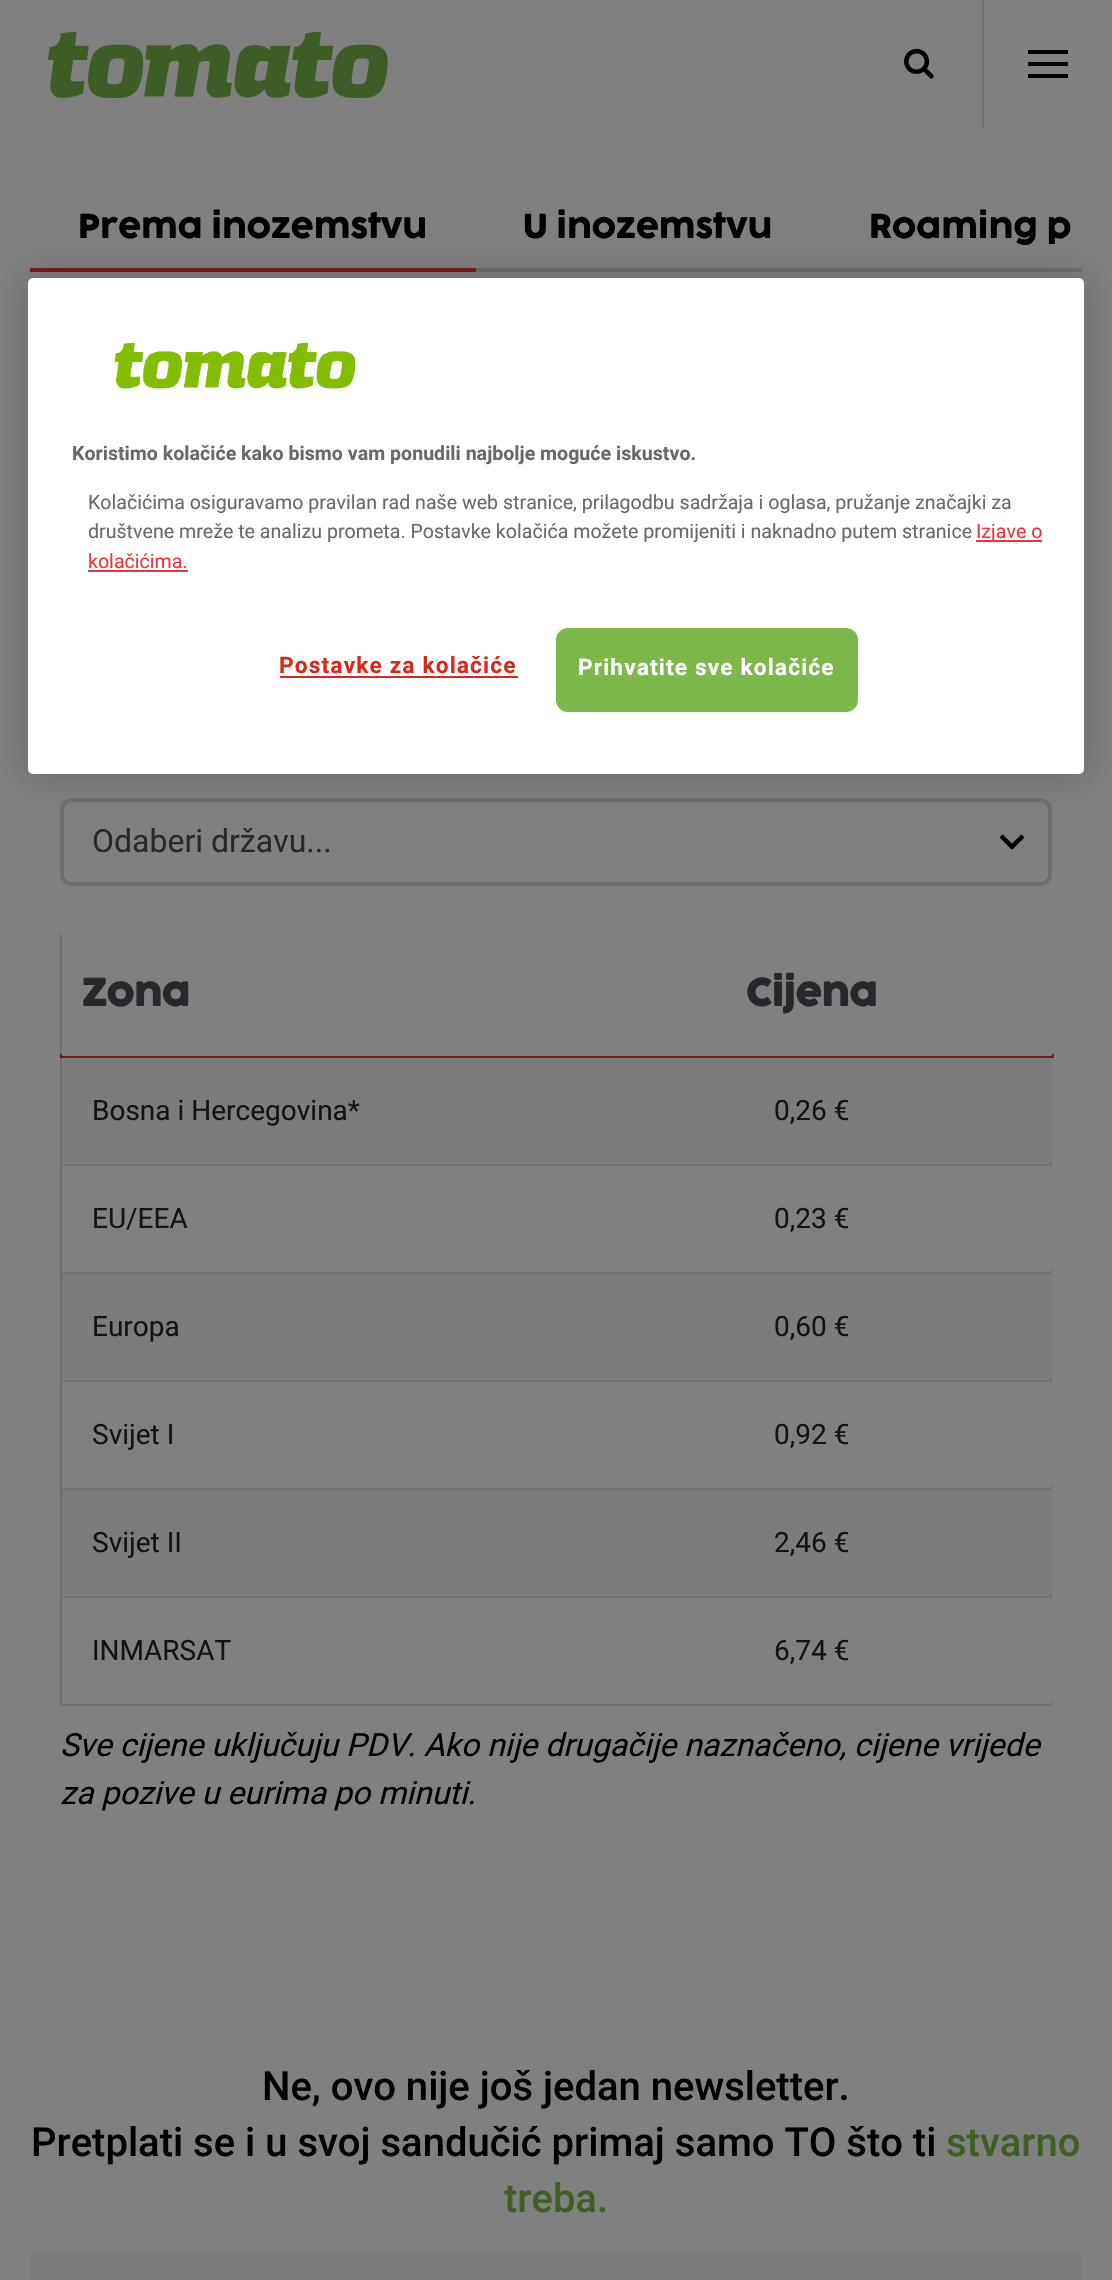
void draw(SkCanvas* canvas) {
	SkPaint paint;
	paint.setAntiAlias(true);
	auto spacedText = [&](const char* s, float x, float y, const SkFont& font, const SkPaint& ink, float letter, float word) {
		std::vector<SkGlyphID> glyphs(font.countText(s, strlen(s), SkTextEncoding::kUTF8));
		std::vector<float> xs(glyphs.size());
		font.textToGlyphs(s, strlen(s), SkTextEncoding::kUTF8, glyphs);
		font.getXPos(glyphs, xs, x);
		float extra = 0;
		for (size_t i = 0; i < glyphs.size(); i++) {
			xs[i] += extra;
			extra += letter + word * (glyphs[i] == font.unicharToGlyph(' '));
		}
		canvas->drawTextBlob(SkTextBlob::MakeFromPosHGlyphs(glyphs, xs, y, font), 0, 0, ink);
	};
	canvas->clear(0xff808080);
	canvas->drawImageRect(SkImages::DeferredFromEncodedData(SkData::MakeFromFileName("img1.png")), SkRect::MakeXYWH(48, 32, 340, 66), SkSamplingOptions());
	paint.setColor(0xff6f6f6f);
	canvas->drawRect(SkRect::MakeXYWH(982, 0, 2, 128), paint);
	canvas->drawImageRect(SkImages::DeferredFromEncodedData(SkData::MakeFromFileName("img2.png")), SkRect::MakeXYWH(904, 48, 30, 31), SkSamplingOptions());
	paint.setColor(0xff000000);
	canvas->drawRect(SkRect::MakeXYWH(1028, 62, 40, 4), paint);
	canvas->drawRect(SkRect::MakeXYWH(1028, 50, 40, 4), paint);
	canvas->drawRect(SkRect::MakeXYWH(1028, 74, 40, 4), paint);
	SkFont f1(fontMgr->matchFamilyStyle("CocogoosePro", SkFontStyle::Normal()), 32);
	f1.setSubpixel(true);
	canvas->drawString("Prema inozemstvu", 78, 238, f1, paint);
	paint.setColor(0xff771b1e);
	canvas->drawRect(SkRect::MakeXYWH(30, 268, 446, 4), paint);
	paint.setColor(0xff000000);
	canvas->drawString("U inozemstvu", 523, 238, f1, paint);
	canvas->drawString("Roaming p", 869, 238, f1, paint);
	paint.setColor(0xff6f6f6f);
	canvas->drawRect(SkRect::MakeXYWH(476, 268, 606, 4), paint);
	canvas->drawImageRect(SkImages::DeferredFromEncodedData(SkData::MakeFromFileName("img3.png")), SkRect::MakeXYWH(1000, 834, 24, 16), SkSamplingOptions());
	paint.setStroke(true);
	paint.setStrokeWidth(4);
	canvas->drawRoundRect(SkRect::MakeXYWH(62, 800, 988, 84), 10, 10, paint);
	SkFont f2(fontMgr->matchFamilyStyle("Roboto", SkFontStyle::Normal()), 32);
	f2.setSubpixel(true);
	paint.setStroke(false);
	paint.setColor(0xff25282c);
	canvas->drawString("Odaberi državu...", 92, 852, f2, paint);
	paint.setColor(0xff6f6f6f);
	canvas->drawRect(SkRect::MakeXYWH(1050, 1162, 2, 544), paint);
	canvas->drawRect(SkRect::MakeXYWH(60, 934, 2, 772), paint);
	paint.setColor(0xff771b1e);
	canvas->drawRect(SkRect::MakeXYWH(60, 1054, 994, 4), paint);
	paint.setColor(0xff808080);
	canvas->drawRect(SkRect::MakeXYWH(62, 1054, 990, 2), paint);
	SkFont f3(fontMgr->matchFamilyStyle("CocogoosePro", SkFontStyle::Bold()), 36);
	f3.setSubpixel(true);
	paint.setColor(0xff25282c);
	canvas->drawString("Zona", 82, 1006, f3, paint);
	canvas->drawString("Cijena", 746, 1006, f3, paint);
	paint.setColor(0xff7c7c7c);
	canvas->drawRect(SkRect::MakeXYWH(62, 1058, 990, 104), paint);
	SkFont f4(fontMgr->matchFamilyStyle("Roboto", SkFontStyle::Normal()), 28);
	f4.setSubpixel(true);
	paint.setColor(0xff111315);
	canvas->drawString("Bosna i Hercegovina*", 92, 1120, f4, paint);
	canvas->drawString("0,26 €", 774, 1120, f4, paint);
	canvas->drawString("EU/EEA", 92, 1228, f4, paint);
	paint.setColor(0xff6f7173);
	canvas->drawRect(SkRect::MakeXYWH(60, 1164, 992, 2), paint);
	paint.setColor(0xff808080);
	canvas->drawRect(SkRect::MakeXYWH(1050, 1166, 2, 104), paint);
	paint.setColor(0xff111315);
	canvas->drawString("0,23 €", 774, 1228, f4, paint);
	paint.setColor(0xff7c7c7c);
	canvas->drawRect(SkRect::MakeXYWH(62, 1274, 990, 104), paint);
	paint.setColor(0xff111315);
	canvas->drawString("Europa", 92, 1336, f4, paint);
	paint.setColor(0xff6f7173);
	canvas->drawRect(SkRect::MakeXYWH(60, 1272, 992, 2), paint);
	paint.setColor(0xff111315);
	canvas->drawString("0,60 €", 774, 1336, f4, paint);
	canvas->drawString("Svijet I", 92, 1444, f4, paint);
	paint.setColor(0xff6f7173);
	canvas->drawRect(SkRect::MakeXYWH(60, 1380, 992, 2), paint);
	paint.setColor(0xff808080);
	canvas->drawRect(SkRect::MakeXYWH(1050, 1382, 2, 104), paint);
	paint.setColor(0xff111315);
	canvas->drawString("0,92 €", 774, 1444, f4, paint);
	paint.setColor(0xff7c7c7c);
	canvas->drawRect(SkRect::MakeXYWH(62, 1490, 990, 104), paint);
	paint.setColor(0xff111315);
	canvas->drawString("Svijet II", 92, 1552, f4, paint);
	paint.setColor(0xff6f7173);
	canvas->drawRect(SkRect::MakeXYWH(60, 1488, 992, 2), paint);
	paint.setColor(0xff111315);
	canvas->drawString("2,46 €", 774, 1552, f4, paint);
	canvas->drawString("INMARSAT", 92, 1660, f4, paint);
	paint.setColor(0xff6f7173);
	canvas->drawRect(SkRect::MakeXYWH(60, 1596, 992, 2), paint);
	canvas->drawRect(SkRect::MakeXYWH(60, 1704, 992, 2), paint);
	paint.setColor(0xff808080);
	canvas->drawRect(SkRect::MakeXYWH(1050, 1598, 2, 104), paint);
	paint.setColor(0xff111315);
	canvas->drawString("6,74 €", 774, 1660, f4, paint);
	SkFont f5(fontMgr->matchFamilyStyle("Roboto", SkFontStyle::Italic()), 32);
	f5.setSubpixel(true);
	paint.setColor(0xff000000);
	canvas->drawString("Sve cijene uključuju PDV. Ako nije drugačije naznačeno, cijene vrijede", 60, 1756, f5, paint);
	canvas->drawString("za pozive u eurima po minuti.", 60, 1804, f5, paint);
	SkFont f6(fontMgr->matchFamilyStyle("Roboto", SkFontStyle(500, SkFontStyle::kNormal_Width, SkFontStyle::kUpright_Slant)), 40);
	f6.setSubpixel(true);
	canvas->drawString("Ne, ovo nije još jedan newsletter.", 262, 2100, f6, paint);
	canvas->drawString("Pretplati se i u svoj sandučić primaj samo TO što ti", 31, 2156, f6, paint);
	paint.setColor(0xff3f5d26);
	canvas->drawString("stvarno", 946, 2156, f6, paint);
	canvas->drawString("treba.", 504, 2212, f6, paint);
	paint.setColor(0xff7c7c7c);
	canvas->drawRect(SkRect::MakeXYWH(30, 2250, 1052, 30), paint);
	paint.setColor(0x33000000);
	paint.setMaskFilter(SkMaskFilter::MakeBlur(kNormal_SkBlurStyle, 18));
	canvas->drawRoundRect(SkRect::MakeXYWH(28, 278, 1056, 496), 5, 5, paint);
	paint.setMaskFilter(nullptr);
	paint.setColor(0xffffffff);
	canvas->drawRoundRect(SkRect::MakeXYWH(28, 278, 1056, 496), 5, 5, paint);
	canvas->drawImageRect(SkImages::DeferredFromEncodedData(SkData::MakeFromFileName("img4.png")), SkRect::MakeXYWH(114, 342, 242, 47), SkSamplingOptions());
	SkFont f7(fontMgr->matchFamilyStyle("Roboto", SkFontStyle::Bold()), 19.6);
	f7.setSubpixel(true);
	paint.setColor(0xff696969);
	canvas->drawString("Koristimo kolačiće kako bismo vam ponudili najbolje moguće iskustvo.", 72, 460, f7, paint);
	SkFont f8(fontMgr->matchFamilyStyle("Roboto", SkFontStyle::Normal()), 19.6);
	f8.setSubpixel(true);
	canvas->drawString("Kolačićima osiguravamo pravilan rad naše web stranice, prilagodbu sadržaja i oglasa, pružanje značajki za", 88, 509, f8, paint);
	canvas->drawString("društvene mreže te analizu prometa. Postavke kolačića možete promijeniti i naknadno putem stranice", 88, 538, f8, paint);
	paint.setColor(0xffed353b);
	canvas->drawRect(SkRect::MakeXYWH(976, 540, 66, 2), paint);
	canvas->drawString("Izjave o", 976, 538, f8, paint);
	canvas->drawString("kolačićima.", 88, 568, f8, paint);
	canvas->drawRect(SkRect::MakeXYWH(88, 570, 100, 2), paint);
	SkFont f9(fontMgr->matchFamilyStyle("Roboto", SkFontStyle::Bold()), 22.75);
	f9.setSubpixel(true);
	paint.setColor(0xffda291c);
	spacedText("Postavke za kolačiće", 279, 673, f9, paint, 1.1, 0);
	canvas->drawRect(SkRect::MakeXYWH(280, 676, 238, 2), paint);
	paint.setColor(0xff7db94a);
	canvas->drawRoundRect(SkRect::MakeXYWH(557, 629, 300, 82), 11, 11, paint);
	paint.setStroke(true);
	paint.setStrokeWidth(2);
	canvas->drawRoundRect(SkRect::MakeXYWH(557, 629, 300, 82), 11, 11, paint);
	paint.setStroke(false);
	paint.setColor(0xffffffff);
	spacedText("Prihvatite sve kolačiće", 578, 675, f9, paint, 1.1, 0);
}
